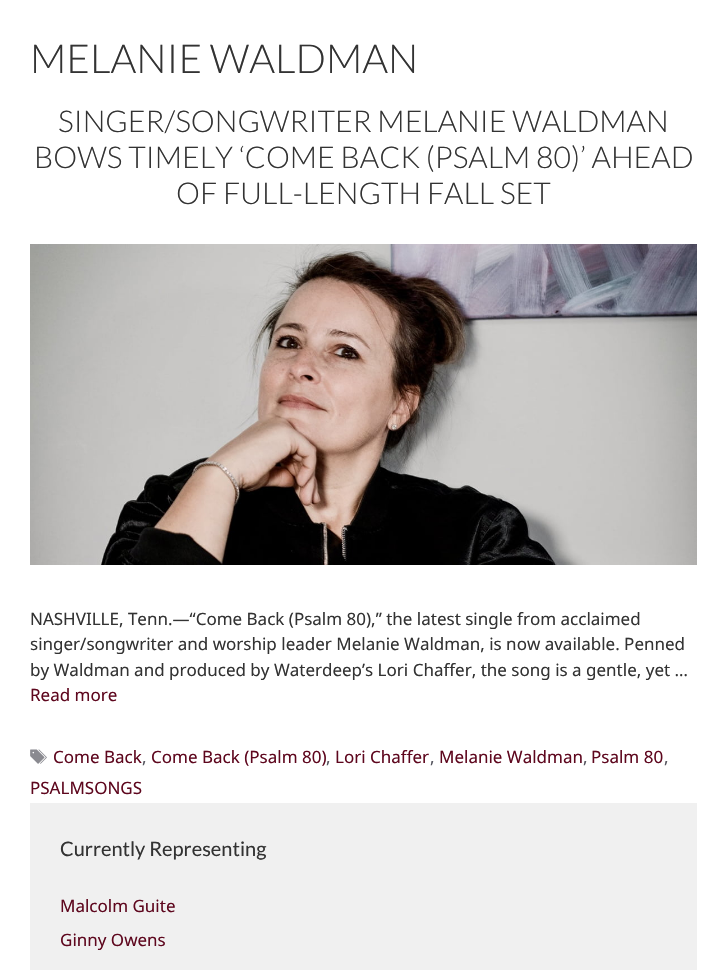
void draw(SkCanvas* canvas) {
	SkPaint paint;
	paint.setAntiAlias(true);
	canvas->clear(0xffffffff);
	SkFont f1(fontMgr->matchFamilyStyle("Lato", SkFontStyle(300, SkFontStyle::kNormal_Width, SkFontStyle::kUpright_Slant)), 40);
	f1.setSubpixel(true);
	paint.setColor(0xff333333);
	canvas->drawString("MELANIE WALDMAN", 30, 73, f1, paint);
	SkFont f2(fontMgr->matchFamilyStyle("Lato", SkFontStyle(300, SkFontStyle::kNormal_Width, SkFontStyle::kUpright_Slant)), 30);
	f2.setSubpixel(true);
	canvas->drawString("SINGER/SONGWRITER MELANIE WALDMAN", 58, 132, f2, paint);
	canvas->drawString("BOWS TIMELY ‘COME BACK (PSALM 80)’ AHEAD", 34, 168, f2, paint);
	canvas->drawString("OF FULL-LENGTH FALL SET", 176, 204, f2, paint);
	canvas->drawImageRect(SkImages::DeferredFromEncodedData(SkData::MakeFromFileName("img1.png")), SkRect::MakeXYWH(30, 244, 667, 321), SkSamplingOptions());
	SkFont f3(fontMgr->matchFamilyStyle("Noto Sans", SkFontStyle::Normal()), 17);
	f3.setSubpixel(true);
	canvas->drawString("NASHVILLE, Tenn.—“Come Back (Psalm 80),” the latest single from acclaimed", 30, 625, f3, paint);
	canvas->drawString("singer/songwriter and worship leader Melanie Waldman, is now available. Penned", 30, 650, f3, paint);
	canvas->drawString("by Waldman and produced by Waterdeep’s Lori Chaffer, the song is a gentle, yet …", 30, 676, f3, paint);
	paint.setColor(0xff5e071e);
	canvas->drawString("Read more", 30, 701, f3, paint);
	canvas->drawImageRect(SkImages::DeferredFromEncodedData(SkData::MakeFromFileName("img2.png")), SkRect::MakeXYWH(30, 749, 17, 15), SkSamplingOptions());
	canvas->drawString("Come Back", 53, 763, f3, paint);
	paint.setColor(0xff575760);
	canvas->drawString(",", 142, 763, f3, paint);
	paint.setColor(0xff5e071e);
	canvas->drawString("Come Back (Psalm 80)", 151, 763, f3, paint);
	paint.setColor(0xff575760);
	canvas->drawString(",", 326, 763, f3, paint);
	paint.setColor(0xff5e071e);
	canvas->drawString("Lori Chaffer", 335, 763, f3, paint);
	paint.setColor(0xff575760);
	canvas->drawString(",", 430, 763, f3, paint);
	paint.setColor(0xff5e071e);
	canvas->drawString("Melanie Waldman", 439, 763, f3, paint);
	paint.setColor(0xff575760);
	canvas->drawString(",", 583, 763, f3, paint);
	paint.setColor(0xff5e071e);
	canvas->drawString("Psalm 80", 591, 763, f3, paint);
	paint.setColor(0xff575760);
	canvas->drawString(",", 664, 763, f3, paint);
	paint.setColor(0xff5e071e);
	canvas->drawString("PSALMSONGS", 30, 794, f3, paint);
	paint.setColor(0xfff0f0f0);
	canvas->drawRect(SkRect::MakeXYWH(30, 803, 667, 167), paint);
	SkFont f4(fontMgr->matchFamilyStyle("Lato", SkFontStyle::Normal()), 20);
	f4.setSubpixel(true);
	paint.setColor(0xff333333);
	canvas->drawString("Currently Representing", 60, 856, f4, paint);
	paint.setColor(0xff5e071e);
	canvas->drawString("Malcolm Guite", 60, 912, f3, paint);
	canvas->drawString("Ginny Owens", 60, 946, f3, paint);
}
